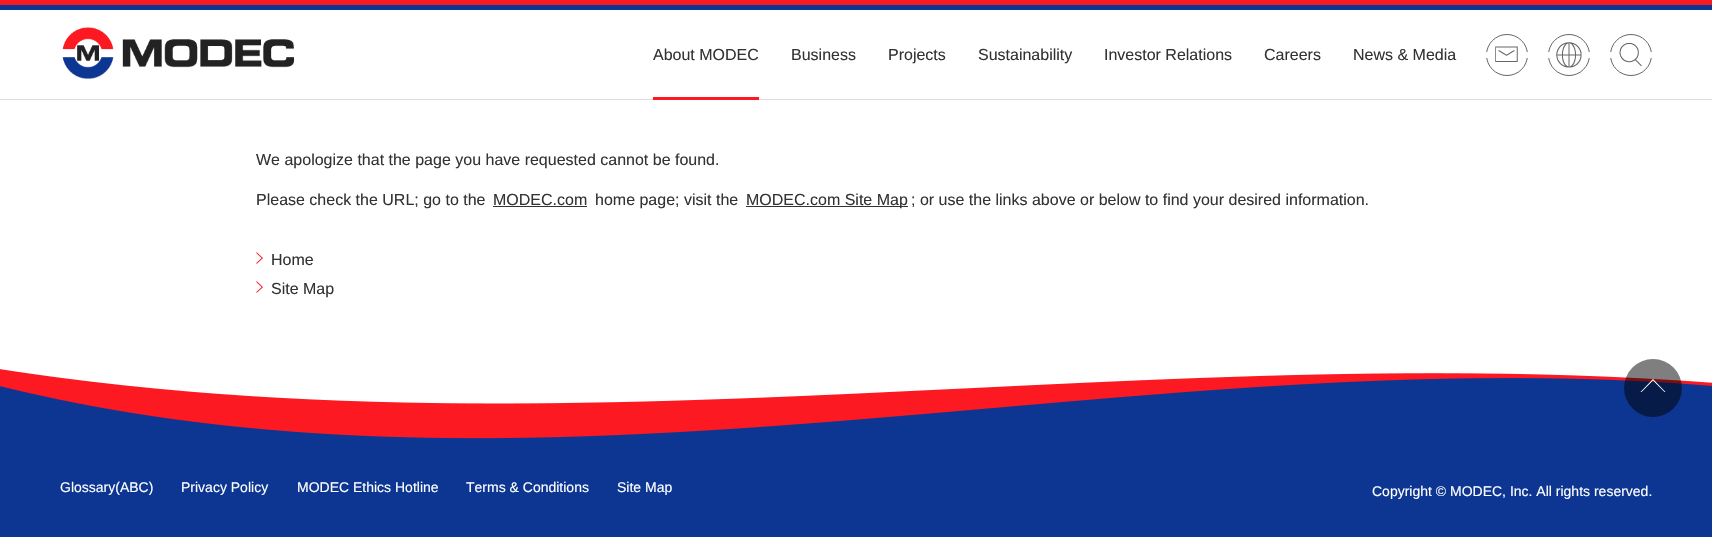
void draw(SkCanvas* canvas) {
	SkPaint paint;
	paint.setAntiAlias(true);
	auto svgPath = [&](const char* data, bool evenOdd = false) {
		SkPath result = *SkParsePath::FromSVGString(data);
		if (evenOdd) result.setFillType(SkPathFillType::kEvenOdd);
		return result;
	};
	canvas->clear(0xffffffff);
	paint.setColor(0xffdddddd);
	canvas->drawRect(SkRect::MakeXYWH(0, 99, 1712, 1), paint);
	paint.setColor(0xfffc1921);
	canvas->drawRect(SkRect::MakeXYWH(0, 0, 1712, 5), paint);
	paint.setColor(0xff0d3692);
	canvas->drawRect(SkRect::MakeXYWH(0, 5, 1712, 5), paint);
	canvas->drawImageRect(SkImages::DeferredFromEncodedData(SkData::MakeFromFileName("img1.png")), SkRect::MakeXYWH(62, 27, 232, 53), SkSamplingOptions());
	SkFont f1(fontMgr->matchFamilyStyle("Liberation Sans", SkFontStyle::Normal()), 16);
	f1.setSubpixel(true);
	paint.setColor(0xff333333);
	canvas->drawString("About MODEC", 653, 60, f1, paint);
	paint.setColor(0xfffc1921);
	canvas->drawRect(SkRect::MakeXYWH(653, 97, 106, 3), paint);
	paint.setColor(0xff333333);
	canvas->drawString("Business", 791, 60, f1, paint);
	canvas->drawString("Projects", 888, 60, f1, paint);
	canvas->drawString("Sustainability", 978, 60, f1, paint);
	canvas->drawString("Investor Relations", 1104, 60, f1, paint);
	canvas->drawString("Careers", 1264, 60, f1, paint);
	canvas->drawString("News & Media", 1353, 60, f1, paint);
	paint.setStroke(true);
	paint.setStrokeWidth(1);
	paint.setColor(0xff666666);
	canvas->drawCircle(1507, 55, 20.5, paint);
	paint.setStroke(false);
	paint.setColor(0xffffffff);
	canvas->drawRect(SkRect::MakeXYWH(1486, 52, 42, 6), paint);
	canvas->drawImageRect(SkImages::DeferredFromEncodedData(SkData::MakeFromFileName("img2.png")), SkRect::MakeXYWH(1495, 46, 23, 16), SkSamplingOptions());
	paint.setStroke(true);
	paint.setColor(0xff666666);
	canvas->drawCircle(1569, 55, 20.5, paint);
	paint.setStroke(false);
	paint.setColor(0xffffffff);
	canvas->drawRect(SkRect::MakeXYWH(1548, 52, 42, 6), paint);
	canvas->drawImageRect(SkImages::DeferredFromEncodedData(SkData::MakeFromFileName("img3.png")), SkRect::MakeXYWH(1556, 42, 26, 26), SkSamplingOptions());
	paint.setStroke(true);
	paint.setColor(0xff666666);
	canvas->drawCircle(1631, 55, 20.5, paint);
	paint.setStroke(false);
	paint.setColor(0xffffffff);
	canvas->drawRect(SkRect::MakeXYWH(1610, 52, 42, 6), paint);
	canvas->drawImageRect(SkImages::DeferredFromEncodedData(SkData::MakeFromFileName("img4.png")), SkRect::MakeXYWH(1619, 43, 23, 24), SkSamplingOptions());
	paint.setColor(0xff333333);
	canvas->drawString("We apologize that the page you have requested cannot be found.", 256, 165, f1, paint);
	canvas->drawString("Please check the URL; go to the", 256, 205, f1, paint);
	canvas->drawString("MODEC.com", 493, 205, f1, paint);
	canvas->drawRect(SkRect::MakeXYWH(493, 206, 94, 1), paint);
	canvas->drawString("home page; visit the", 595, 205, f1, paint);
	canvas->drawRect(SkRect::MakeXYWH(746, 206, 162, 1), paint);
	canvas->drawString("MODEC.com Site Map", 746, 205, f1, paint);
	canvas->drawString("; or use the links above or below to find your desired information.", 911, 205, f1, paint);
	canvas->drawImageRect(SkImages::DeferredFromEncodedData(SkData::MakeFromFileName("img5.png")), SkRect::MakeXYWH(256, 252, 7, 12), SkSamplingOptions());
	canvas->drawString("Home", 271, 265, f1, paint);
	canvas->drawImageRect(SkImages::DeferredFromEncodedData(SkData::MakeFromFileName("img5.png")), SkRect::MakeXYWH(256, 281, 7, 12), SkSamplingOptions());
	canvas->drawString("Site Map", 271, 294, f1, paint);
	canvas->drawImageRect(SkImages::DeferredFromEncodedData(SkData::MakeFromFileName("img6.png")), SkRect::MakeXYWH(0, 369, 1712, 70), SkSamplingOptions());
	paint.setColor(0x80000000);
	canvas->drawCircle(1653, 388, 29, paint);
	paint.setColor(0xffffffff);
	canvas->drawPath(svgPath("M1640.5 392L1653 379V380.5L1641.5 392ZM1653 379L1665.5 392H1664.5L1653 380.5Z"), paint);
	paint.setColor(0xff0d3692);
	canvas->drawRect(SkRect::MakeXYWH(0, 439, 1712, 98), paint);
	SkFont f2(fontMgr->matchFamilyStyle("Liberation Sans", SkFontStyle::Normal()), 14);
	f2.setSubpixel(true);
	paint.setColor(0xffffffff);
	canvas->drawString("Glossary(ABC)", 60, 492, f2, paint);
	canvas->drawString("Privacy Policy", 181, 492, f2, paint);
	canvas->drawString("MODEC Ethics Hotline", 297, 492, f2, paint);
	canvas->drawString("Terms & Conditions", 466, 492, f2, paint);
	canvas->drawString("Site Map", 617, 492, f2, paint);
	canvas->drawString("Copyright © MODEC, Inc. All rights reserved.", 1372, 496, f2, paint);
}
